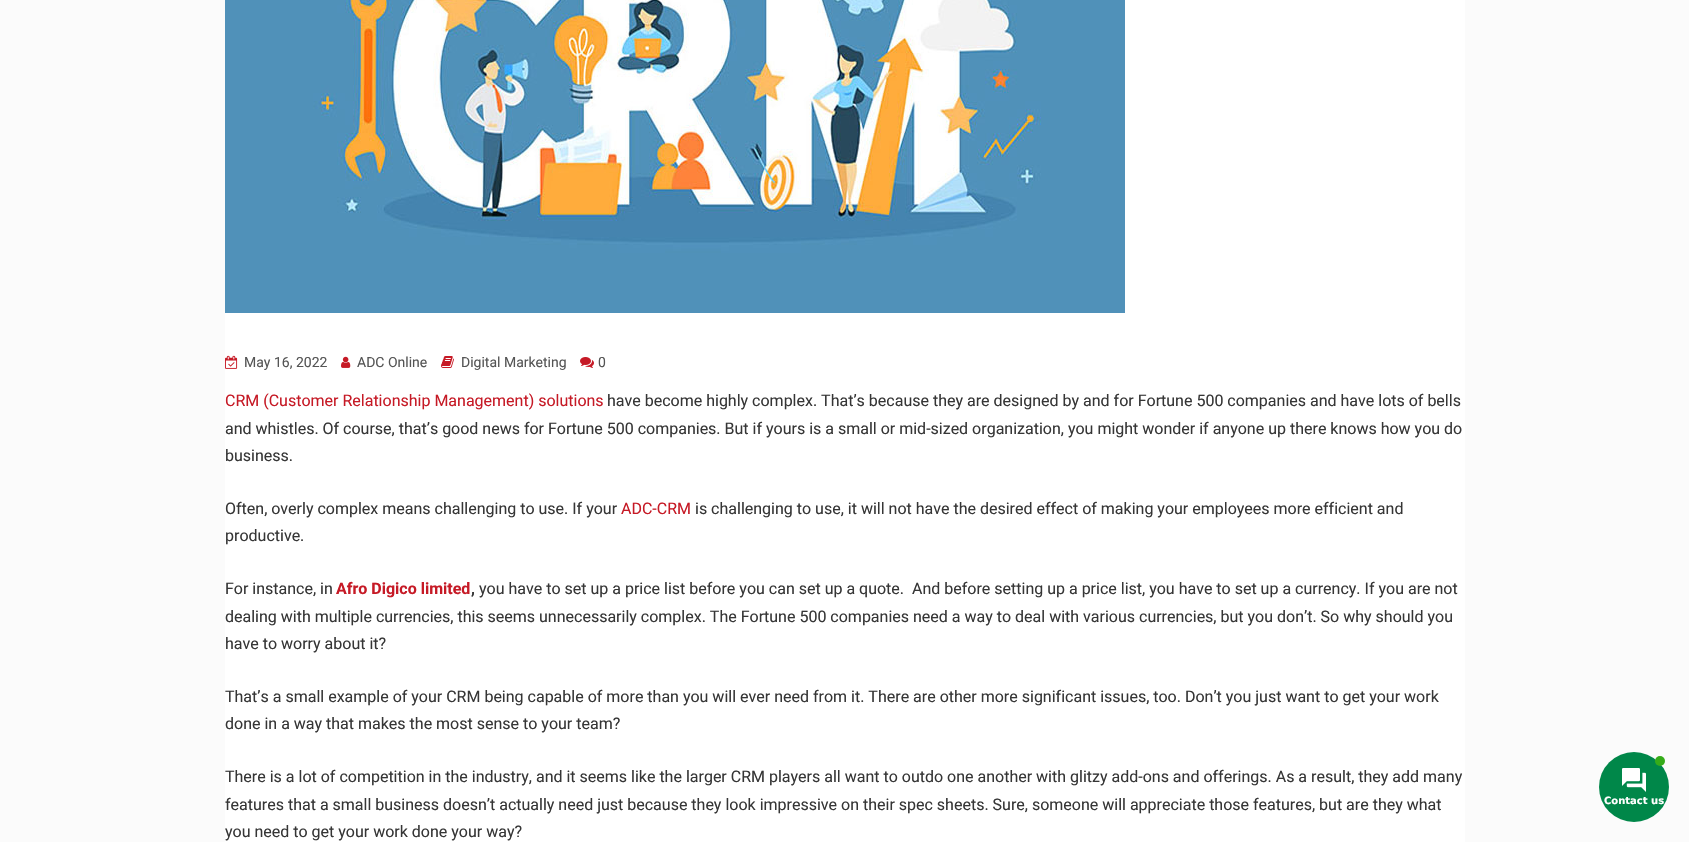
void draw(SkCanvas* canvas) {
	SkPaint paint;
	paint.setAntiAlias(true);
	canvas->clear(0xfffbfbfb);
	paint.setColor(0xffffffff);
	canvas->drawRect(SkRect::MakeXYWH(225, 0, 1240, 842), paint);
	canvas->drawImageRect(SkImages::DeferredFromEncodedData(SkData::MakeFromFileName("img1.png")), SkRect::MakeXYWH(225, 0, 900, 313), SkSamplingOptions());
	canvas->drawImageRect(SkImages::DeferredFromEncodedData(SkData::MakeFromFileName("img2.png")), SkRect::MakeXYWH(225, 355, 13, 14), SkSamplingOptions());
	SkFont f1(fontMgr->matchFamilyStyle("Roboto", SkFontStyle::Normal()), 14);
	f1.setSubpixel(true);
	paint.setColor(0xff555555);
	canvas->drawString("May 16, 2022", 244, 367, f1, paint);
	canvas->drawImageRect(SkImages::DeferredFromEncodedData(SkData::MakeFromFileName("img3.png")), SkRect::MakeXYWH(341, 356, 10, 12), SkSamplingOptions());
	canvas->drawString("ADC Online", 357, 367, f1, paint);
	canvas->drawImageRect(SkImages::DeferredFromEncodedData(SkData::MakeFromFileName("img4.png")), SkRect::MakeXYWH(441, 356, 13, 12), SkSamplingOptions());
	canvas->drawString("Digital Marketing", 461, 367, f1, paint);
	canvas->drawImageRect(SkImages::DeferredFromEncodedData(SkData::MakeFromFileName("img5.png")), SkRect::MakeXYWH(580, 357, 14, 11), SkSamplingOptions());
	canvas->drawString("0", 598, 367, f1, paint);
	SkFont f2(fontMgr->matchFamilyStyle("Roboto", SkFontStyle::Normal()), 16);
	f2.setSubpixel(true);
	paint.setColor(0xffc61a26);
	canvas->drawString("CRM (Customer Relationship Management) solutions", 225, 406, f2, paint);
	paint.setColor(0xff363636);
	canvas->drawString("have become highly complex. That’s because they are designed by and for Fortune 500 companies and have lots of bells", 607, 406, f2, paint);
	canvas->drawString("and whistles. Of course, that’s good news for Fortune 500 companies. But if yours is a small or mid-sized organization, you might wonder if anyone up there knows how you do", 225, 434, f2, paint);
	canvas->drawString("business.", 225, 461, f2, paint);
	canvas->drawString("Often, overly complex means challenging to use. If your", 225, 514, f2, paint);
	paint.setColor(0xffc61a26);
	canvas->drawString("ADC-CRM", 621, 514, f2, paint);
	paint.setColor(0xff363636);
	canvas->drawString("is challenging to use, it will not have the desired effect of making your employees more efficient and", 695, 514, f2, paint);
	canvas->drawString("productive.", 225, 541, f2, paint);
	canvas->drawString("For instance, in", 225, 594, f2, paint);
	SkFont f3(fontMgr->matchFamilyStyle("Roboto", SkFontStyle::Bold()), 16);
	f3.setSubpixel(true);
	paint.setColor(0xffc61a26);
	canvas->drawString("Afro Digico limited", 336, 594, f3, paint);
	paint.setColor(0xff363636);
	canvas->drawString(",", 471, 594, f3, paint);
	canvas->drawString("you have to set up a price list before you can set up a quote.  And before setting up a price list, you have to set up a currency. If you are not", 479, 594, f2, paint);
	canvas->drawString("dealing with multiple currencies, this seems unnecessarily complex. The Fortune 500 companies need a way to deal with various currencies, but you don’t. So why should you", 225, 622, f2, paint);
	canvas->drawString("have to worry about it?", 225, 649, f2, paint);
	canvas->drawString("That’s a small example of your CRM being capable of more than you will ever need from it. There are other more significant issues, too. Don’t you just want to get your work", 225, 702, f2, paint);
	canvas->drawString("done in a way that makes the most sense to your team?", 225, 729, f2, paint);
	canvas->drawString("There is a lot of competition in the industry, and it seems like the larger CRM players all want to outdo one another with glitzy add-ons and offerings. As a result, they add many", 225, 782, f2, paint);
	canvas->drawString("features that a small business doesn’t actually need just because they look impressive on their spec sheets. Sure, someone will appreciate those features, but are they what", 225, 810, f2, paint);
	canvas->drawString("you need to get your work done your way?", 225, 837, f2, paint);
	paint.setColor(0xff008749);
	canvas->drawCircle(1634, 787, 35, paint);
	paint.setColor(0xff35ac19);
	canvas->drawCircle(1660, 761, 5, paint);
	canvas->drawImageRect(SkImages::DeferredFromEncodedData(SkData::MakeFromFileName("img6.png")), SkRect::MakeXYWH(1622, 768, 24, 24), SkSamplingOptions());
	SkFont f4(fontMgr->matchFamilyStyle("DejaVu Sans", SkFontStyle::Bold()), 10);
	f4.setSubpixel(true);
	paint.setColor(0xffffffff);
	canvas->drawString("Contact us", 1604, 804, f4, paint);
}
